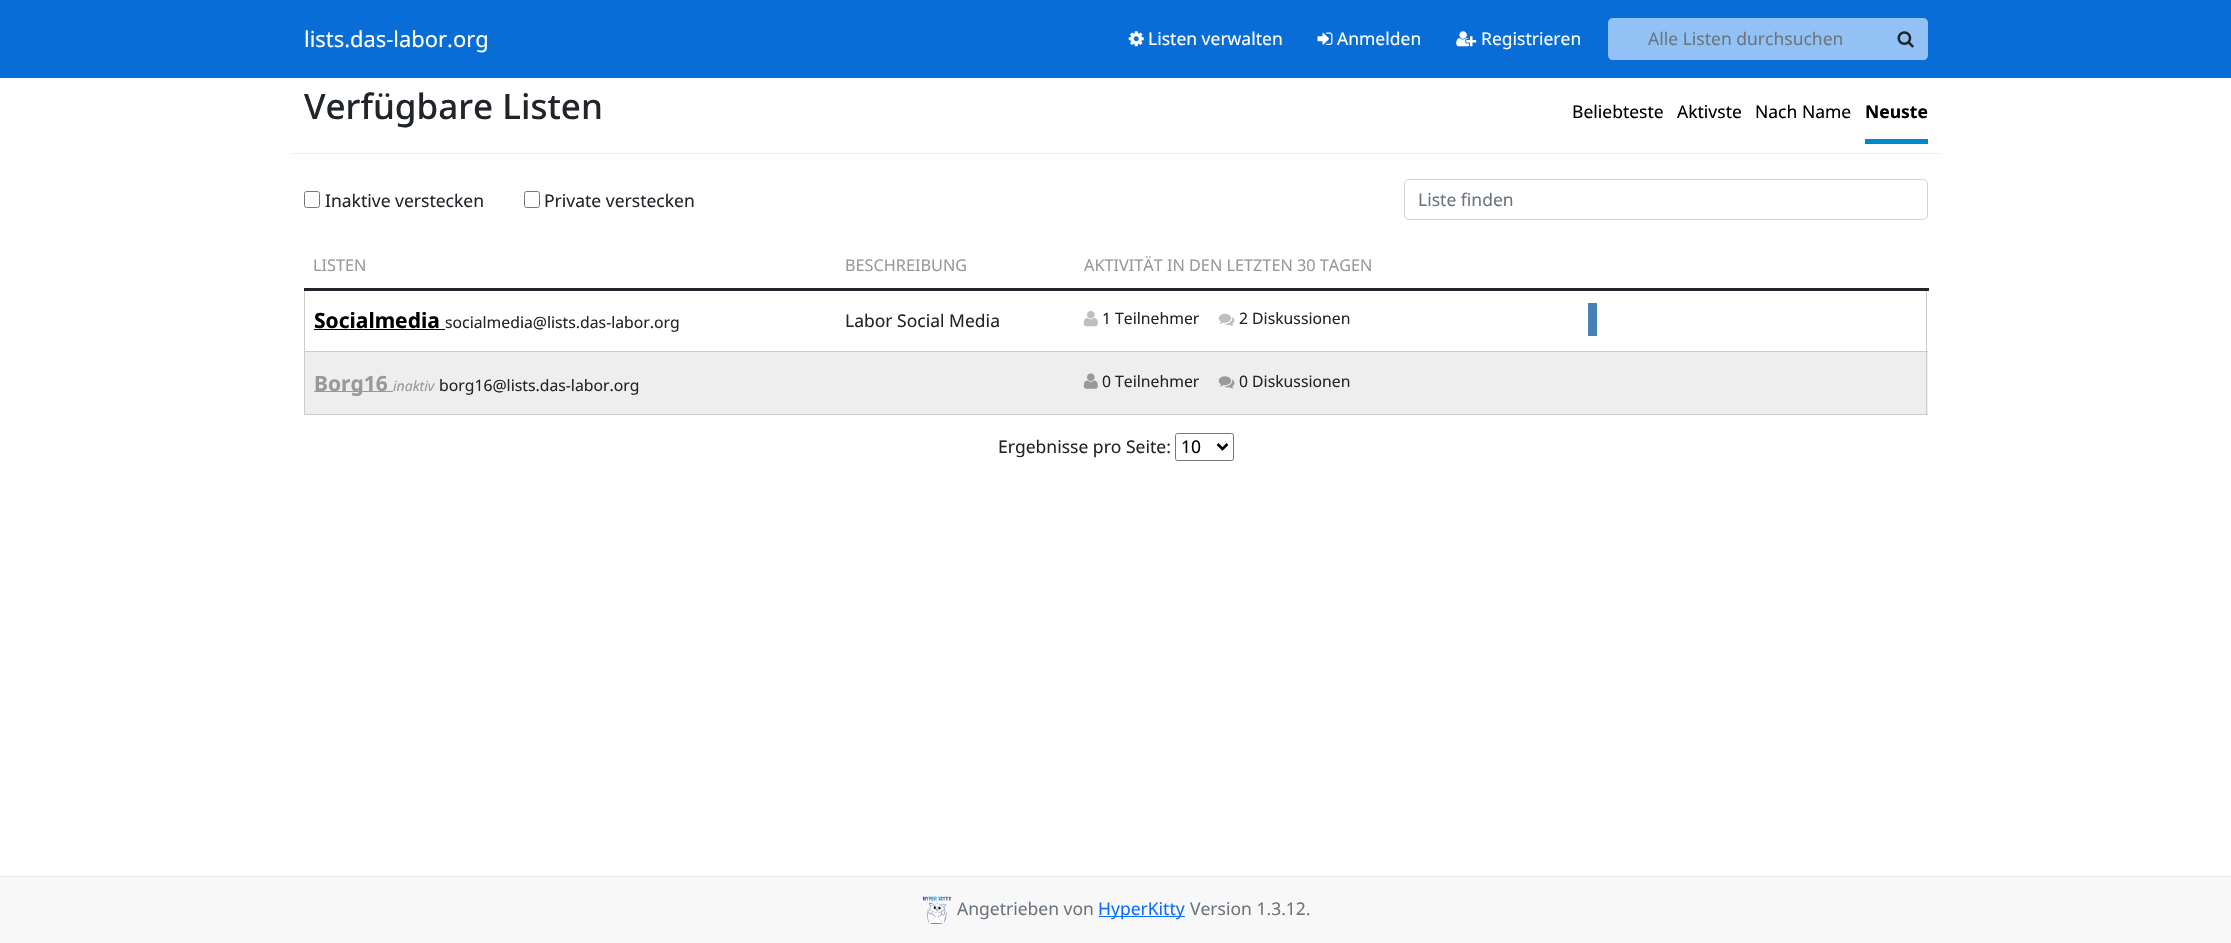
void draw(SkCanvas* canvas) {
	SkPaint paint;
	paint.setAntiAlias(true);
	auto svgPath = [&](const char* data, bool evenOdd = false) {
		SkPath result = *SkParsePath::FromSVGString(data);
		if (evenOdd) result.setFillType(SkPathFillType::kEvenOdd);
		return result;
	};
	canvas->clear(0xffffffff);
	paint.setColor(0xff086dd7);
	canvas->drawRect(SkRect::MakeXYWH(0, 0, 2231, 78), paint);
	SkFont f1(fontMgr->matchFamilyStyle("Noto Sans", SkFontStyle::Normal()), 21.9);
	f1.setSubpixel(true);
	paint.setColor(0xffffffff);
	canvas->drawString("lists.das-labor.org", 304, 47, f1, paint);
	canvas->drawImageRect(SkImages::DeferredFromEncodedData(SkData::MakeFromFileName("img1.png")), SkRect::MakeXYWH(1128, 31, 16, 16), SkSamplingOptions());
	SkFont f2(fontMgr->matchFamilyStyle("Noto Sans", SkFontStyle::Normal()), 17.5);
	f2.setSubpixel(true);
	canvas->drawString("Listen verwalten", 1148, 45, f2, paint);
	canvas->drawImageRect(SkImages::DeferredFromEncodedData(SkData::MakeFromFileName("img2.png")), SkRect::MakeXYWH(1317, 32, 16, 13), SkSamplingOptions());
	canvas->drawString("Anmelden", 1337, 45, f2, paint);
	canvas->drawImageRect(SkImages::DeferredFromEncodedData(SkData::MakeFromFileName("img3.png")), SkRect::MakeXYWH(1456, 31, 21, 16), SkSamplingOptions());
	canvas->drawString("Registrieren", 1481, 45, f2, paint);
	paint.setColor(0xff92c2f5);
	canvas->drawPath(svgPath("M1613 18H1884V60H1613C1610 60 1608 58 1608 55V23C1608 20 1610 18 1613 18Z"), paint);
	paint.setColor(0xff6c757d);
	canvas->drawString("Alle Listen durchsuchen", 1648, 45, f2, paint);
	paint.setColor(0xff92c2f5);
	canvas->drawPath(svgPath("M1883 18H1923C1926 18 1928 20 1928 23V55C1928 58 1926 60 1923 60H1883Z"), paint);
	canvas->drawImageRect(SkImages::DeferredFromEncodedData(SkData::MakeFromFileName("img4.png")), SkRect::MakeXYWH(1897, 31, 17, 17), SkSamplingOptions());
	paint.setColor(0xffeeeeee);
	canvas->drawRect(SkRect::MakeXYWH(291, 153, 1650, 1), paint);
	SkFont f3(fontMgr->matchFamilyStyle("Noto Sans", SkFontStyle(500, SkFontStyle::kNormal_Width, SkFontStyle::kUpright_Slant)), 35);
	f3.setSubpixel(true);
	paint.setColor(0xff212529);
	canvas->drawString("Verfügbare Listen", 304, 119, f3, paint);
	paint.setColor(0xff000000);
	canvas->drawString("Beliebteste", 1572, 118, f2, paint);
	canvas->drawString("Aktivste", 1677, 118, f2, paint);
	canvas->drawString("Nach Name", 1755, 118, f2, paint);
	SkFont f4(fontMgr->matchFamilyStyle("Noto Sans", SkFontStyle::Bold()), 17.5);
	f4.setSubpixel(true);
	canvas->drawString("Neuste", 1865, 118, f4, paint);
	paint.setColor(0xff0088cc);
	canvas->drawRect(SkRect::MakeXYWH(1865, 139, 63, 5), paint);
	paint.setStroke(true);
	paint.setStrokeWidth(1);
	paint.setColor(0xff767676);
	canvas->drawRoundRect(SkRect::MakeXYWH(304.5, 191.5, 15, 16), 2, 2, paint);
	paint.setStroke(false);
	paint.setColor(0xff212529);
	canvas->drawString("Inaktive verstecken", 325, 207, f2, paint);
	paint.setStroke(true);
	paint.setColor(0xff767676);
	canvas->drawRoundRect(SkRect::MakeXYWH(524.5, 191.5, 15, 16), 2, 2, paint);
	paint.setStroke(false);
	paint.setColor(0xff212529);
	canvas->drawString("Private verstecken", 544, 207, f2, paint);
	paint.setStroke(true);
	paint.setColor(0xffced4da);
	canvas->drawRoundRect(SkRect::MakeXYWH(1404.5, 179.5, 523, 40), 4.5, 4.5, paint);
	paint.setStroke(false);
	paint.setColor(0xff6c757d);
	canvas->drawString("Liste finden", 1418, 206, f2, paint);
	SkFont f5(fontMgr->matchFamilyStyle("Noto Sans", SkFontStyle::Normal()), 16.25);
	f5.setSubpixel(true);
	paint.setColor(0xff999999);
	canvas->drawString("LISTEN", 313, 271, f5, paint);
	canvas->drawString("BESCHREIBUNG", 845, 271, f5, paint);
	canvas->drawString("AKTIVITÄT IN DEN LETZTEN 30 TAGEN", 1084, 271, f5, paint);
	paint.setColor(0xffeeeeee);
	canvas->drawRect(SkRect::MakeXYWH(305, 352, 1623, 62), paint);
	paint.setColor(0xffcccccc);
	canvas->drawRect(SkRect::MakeXYWH(304, 351, 1624, 1), paint);
	canvas->drawRect(SkRect::MakeXYWH(1926, 288, 1, 127), paint);
	canvas->drawRect(SkRect::MakeXYWH(304, 414, 1624, 1), paint);
	canvas->drawRect(SkRect::MakeXYWH(304, 288, 1, 127), paint);
	paint.setColor(0xff212529);
	canvas->drawRect(SkRect::MakeXYWH(304, 288, 1625, 3), paint);
	SkFont f6(fontMgr->matchFamilyStyle("Noto Sans", SkFontStyle::Bold()), 21);
	f6.setSubpixel(true);
	paint.setColor(0xff000000);
	canvas->drawString("Socialmedia", 314, 328, f6, paint);
	canvas->drawRect(SkRect::MakeXYWH(314, 329, 131, 1), paint);
	SkFont f7(fontMgr->matchFamilyStyle("Noto Sans", SkFontStyle::Normal()), 15.75);
	f7.setSubpixel(true);
	paint.setColor(0xff212529);
	canvas->drawString("socialmedia@lists.das-labor.org", 445, 328, f7, paint);
	canvas->drawString("Labor Social Media", 845, 327, f2, paint);
	canvas->drawImageRect(SkImages::DeferredFromEncodedData(SkData::MakeFromFileName("img5.png")), SkRect::MakeXYWH(1083, 311, 15, 16), SkSamplingOptions());
	canvas->drawString("1 Teilnehmer", 1102, 324, f7, paint);
	canvas->drawImageRect(SkImages::DeferredFromEncodedData(SkData::MakeFromFileName("img6.png")), SkRect::MakeXYWH(1218, 313, 17, 13), SkSamplingOptions());
	canvas->drawString("2 Diskussionen", 1239, 324, f7, paint);
	paint.setColor(0xff4682b4);
	canvas->drawRect(SkRect::MakeXYWH(1588, 303, 9, 33), paint);
	paint.setColor(0xff999999);
	canvas->drawRect(SkRect::MakeXYWH(314, 391, 79, 1), paint);
	canvas->drawString("Borg16", 314, 391, f6, paint);
	SkFont f8(fontMgr->matchFamilyStyle("Noto Sans", SkFontStyle::Italic()), 14);
	f8.setSubpixel(true);
	canvas->drawString("inaktiv", 393, 391, f8, paint);
	paint.setColor(0xff212529);
	canvas->drawString("borg16@lists.das-labor.org", 439, 391, f7, paint);
	canvas->drawImageRect(SkImages::DeferredFromEncodedData(SkData::MakeFromFileName("img7.png")), SkRect::MakeXYWH(1083, 373, 15, 16), SkSamplingOptions());
	canvas->drawString("0 Teilnehmer", 1102, 387, f7, paint);
	canvas->drawImageRect(SkImages::DeferredFromEncodedData(SkData::MakeFromFileName("img8.png")), SkRect::MakeXYWH(1218, 376, 17, 13), SkSamplingOptions());
	canvas->drawString("0 Diskussionen", 1239, 387, f7, paint);
	canvas->drawString("Ergebnisse pro Seite:", 998, 453, f2, paint);
	paint.setStroke(true);
	paint.setColor(0xff767676);
	canvas->drawRoundRect(SkRect::MakeXYWH(1175.5, 433.5, 58, 27), 2, 2, paint);
	paint.setStrokeWidth(2.5);
	paint.setColor(0xff000000);
	canvas->drawPath(svgPath("M1217.5 444L1222.5 449L1227.5 444"), paint);
	paint.setStroke(false);
	canvas->drawString("10", 1181, 453, f2, paint);
	paint.setColor(0xfff8f8f8);
	canvas->drawRect(SkRect::MakeXYWH(0, 877, 2231, 66), paint);
	paint.setColor(0xffe7e7e7);
	canvas->drawRect(SkRect::MakeXYWH(0, 876, 2231, 1), paint);
	canvas->drawImageRect(SkImages::DeferredFromEncodedData(SkData::MakeFromFileName("img9.png")), SkRect::MakeXYWH(922, 896, 30, 29), SkSamplingOptions());
	paint.setColor(0xff6c757d);
	canvas->drawString("Angetrieben von", 957, 915, f2, paint);
	paint.setColor(0xff0d6efd);
	canvas->drawRect(SkRect::MakeXYWH(1099, 916, 86, 1), paint);
	canvas->drawString("HyperKitty", 1098, 915, f2, paint);
	paint.setColor(0xff6c757d);
	canvas->drawString("Version 1.3.12.", 1190, 915, f2, paint);
}
